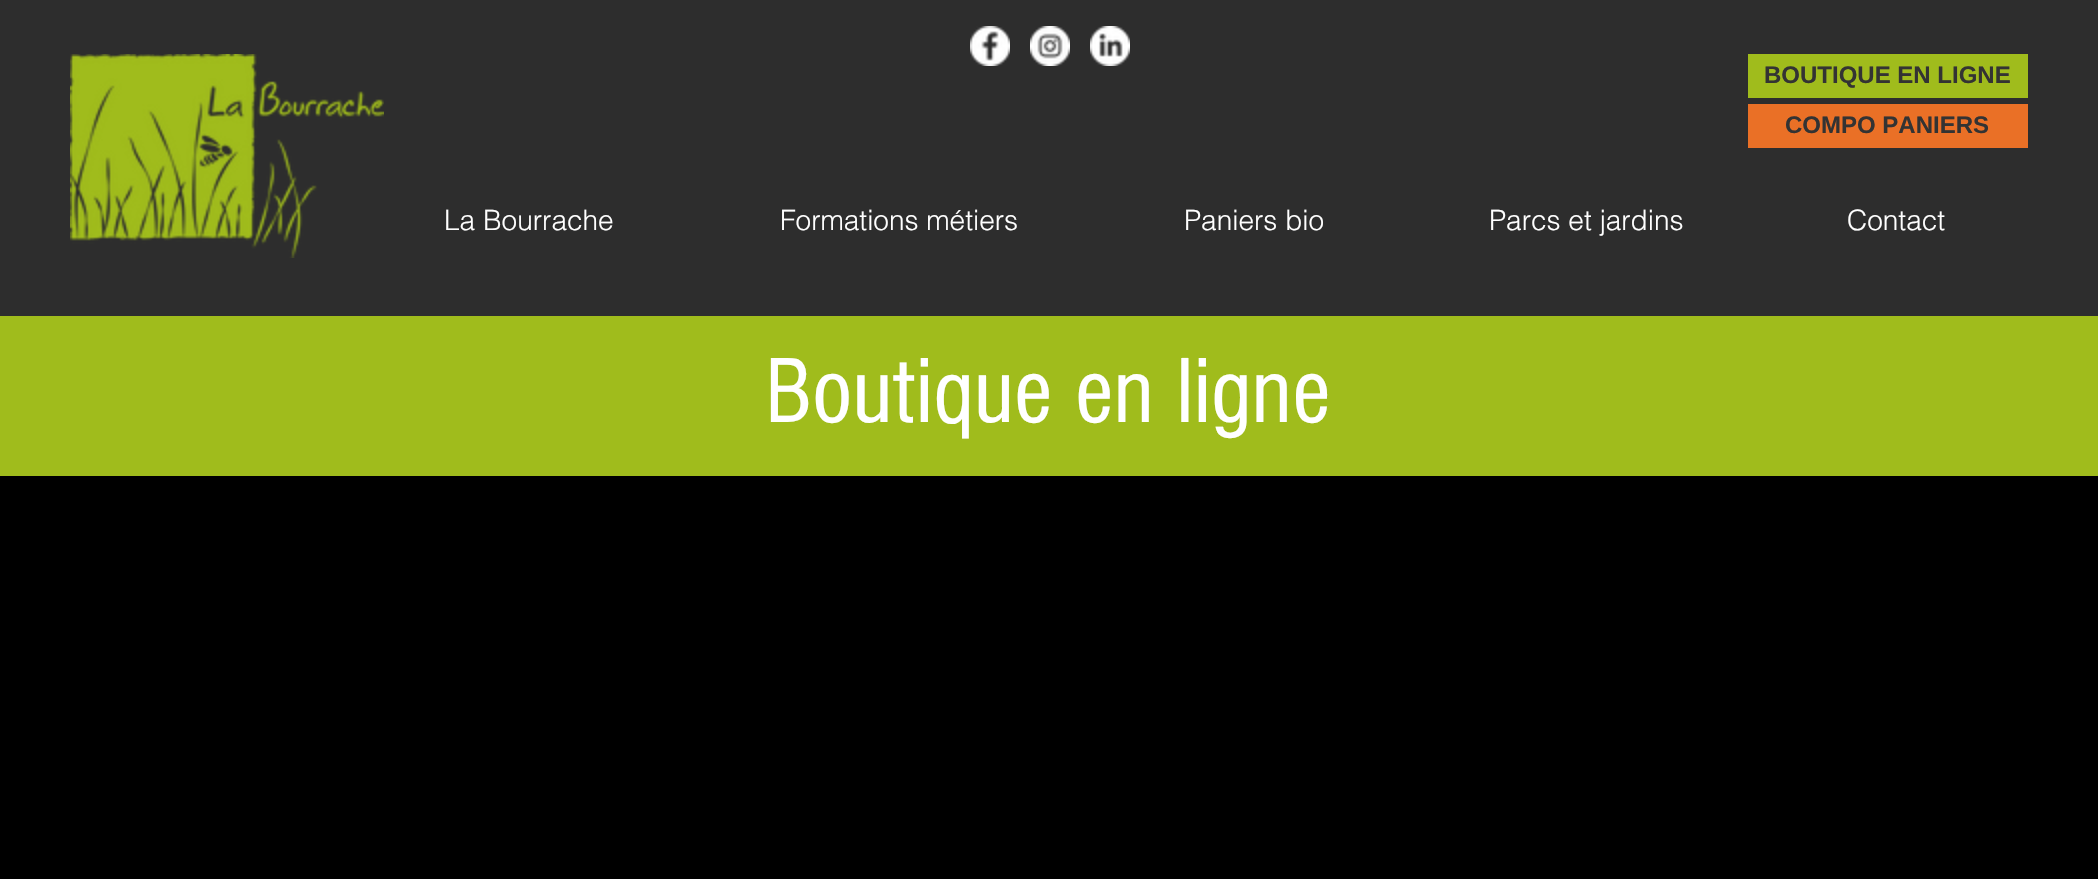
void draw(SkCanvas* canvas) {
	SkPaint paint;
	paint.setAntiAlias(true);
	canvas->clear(0xff2d2d2d);
	canvas->drawImageRect(SkImages::DeferredFromEncodedData(SkData::MakeFromFileName("img1.png")), SkRect::MakeXYWH(970, 26, 40, 40), SkSamplingOptions());
	canvas->drawImageRect(SkImages::DeferredFromEncodedData(SkData::MakeFromFileName("img2.png")), SkRect::MakeXYWH(1030, 26, 40, 40), SkSamplingOptions());
	canvas->drawImageRect(SkImages::DeferredFromEncodedData(SkData::MakeFromFileName("img3.png")), SkRect::MakeXYWH(1090, 26, 40, 40), SkSamplingOptions());
	canvas->drawImageRect(SkImages::DeferredFromEncodedData(SkData::MakeFromFileName("img4.png")), SkRect::MakeXYWH(70, 54, 314, 204), SkSamplingOptions());
	paint.setColor(0xffa0bc1c);
	canvas->drawRect(SkRect::MakeXYWH(1748, 54, 280, 44), paint);
	SkFont f1(fontMgr->matchFamilyStyle("Liberation Sans", SkFontStyle::Bold()), 24);
	f1.setSubpixel(true);
	paint.setColor(0xff333333);
	canvas->drawString("BOUTIQUE EN LIGNE", 1764, 83, f1, paint);
	paint.setColor(0xffea7026);
	canvas->drawRect(SkRect::MakeXYWH(1748, 104, 280, 44), paint);
	paint.setColor(0xff333333);
	canvas->drawString("COMPO PANIERS", 1785, 133, f1, paint);
	SkFont f2(fontMgr->matchFamilyStyle("helvetica", SkFontStyle(300, SkFontStyle::kNormal_Width, SkFontStyle::kUpright_Slant)), 28);
	f2.setSubpixel(true);
	paint.setColor(0xffffffff);
	canvas->drawString("La Bourrache", 444, 230, f2, paint);
	canvas->drawString("Formations métiers", 780, 230, f2, paint);
	canvas->drawString("Paniers bio", 1184, 230, f2, paint);
	canvas->drawString("Parcs et jardins", 1489, 230, f2, paint);
	canvas->drawString("Contact", 1847, 230, f2, paint);
	paint.setColor(0xffa0bc1c);
	canvas->drawRect(SkRect::MakeXYWH(0, 316, 2098, 160), paint);
	SkFont f3(fontMgr->matchFamilyStyle("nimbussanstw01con", SkFontStyle::Normal()), 96);
	f3.setSubpixel(true);
	paint.setColor(0xffffffff);
	canvas->drawString("Boutique en ligne", 765, 422, f3, paint);
	paint.setColor(0xff000000);
	canvas->drawRect(SkRect::MakeXYWH(0, 476, 2098, 403), paint);
}
